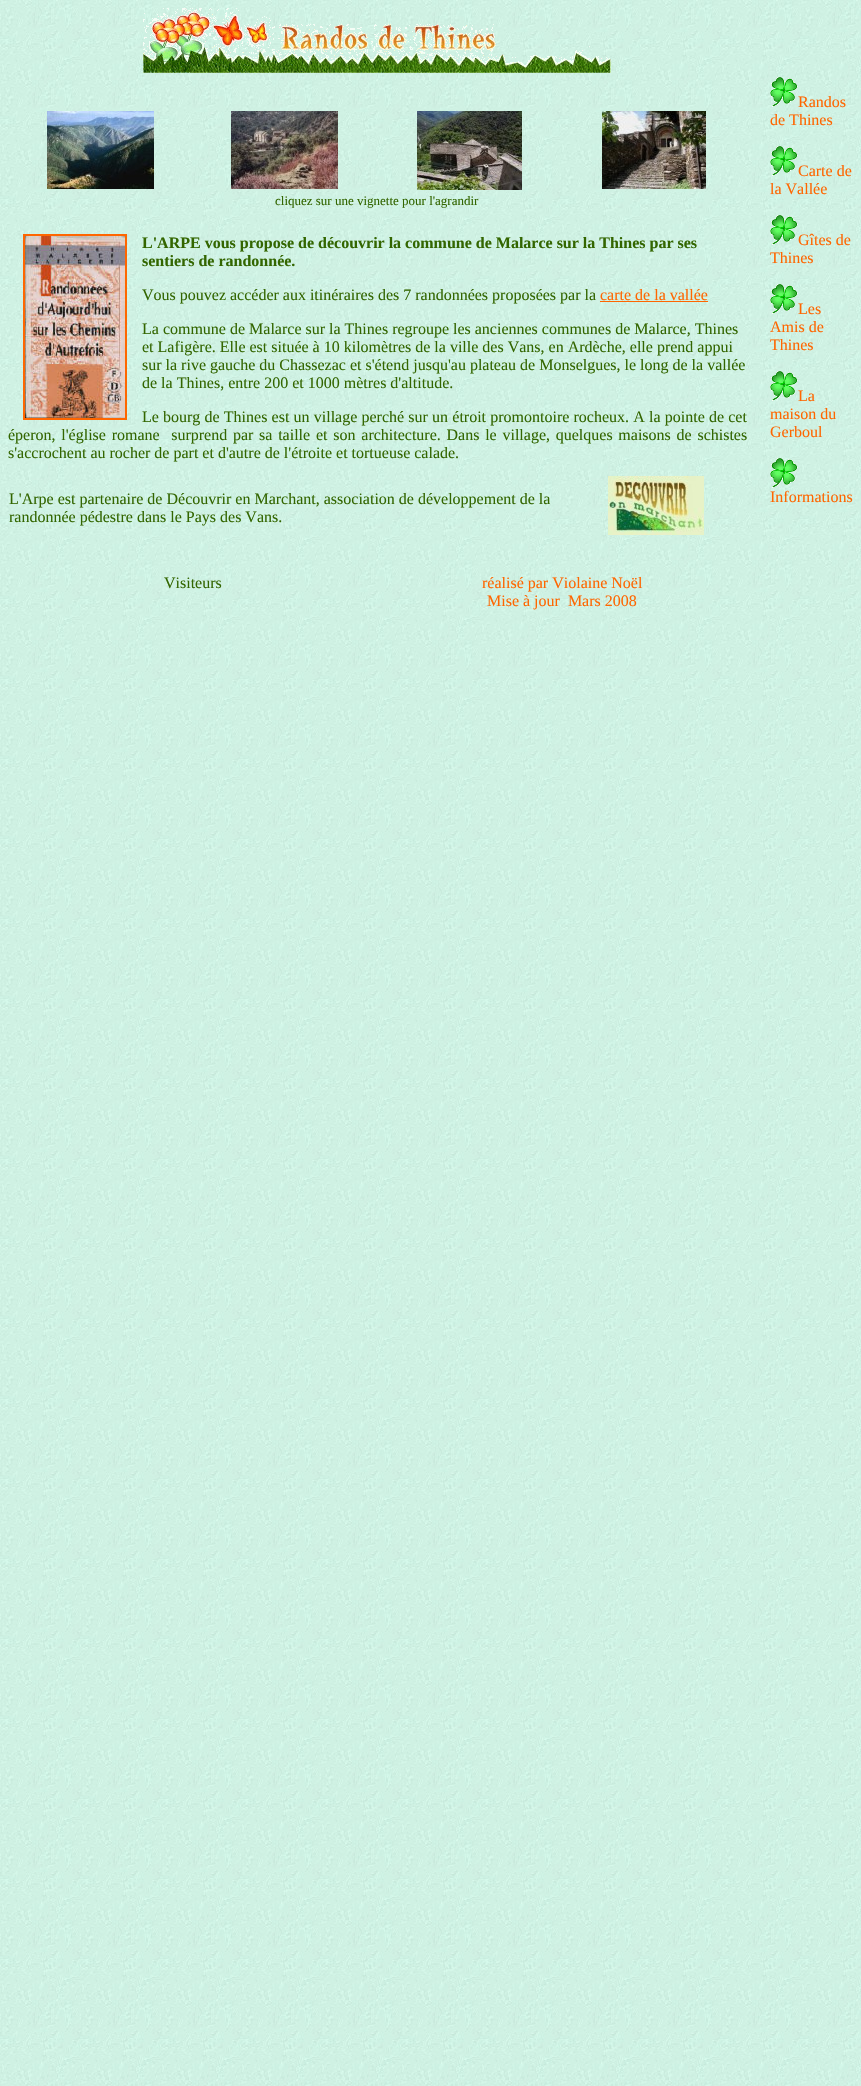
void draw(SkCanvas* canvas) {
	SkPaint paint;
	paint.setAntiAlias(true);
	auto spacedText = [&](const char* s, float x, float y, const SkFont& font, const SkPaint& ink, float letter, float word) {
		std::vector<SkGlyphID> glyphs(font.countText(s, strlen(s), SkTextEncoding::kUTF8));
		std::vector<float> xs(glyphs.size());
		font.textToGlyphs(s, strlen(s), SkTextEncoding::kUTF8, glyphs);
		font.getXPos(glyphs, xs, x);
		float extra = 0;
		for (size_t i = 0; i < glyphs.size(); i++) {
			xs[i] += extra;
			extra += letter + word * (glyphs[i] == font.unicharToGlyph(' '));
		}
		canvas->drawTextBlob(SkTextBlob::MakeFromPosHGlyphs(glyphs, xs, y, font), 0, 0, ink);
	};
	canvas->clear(0xffffffff);
	canvas->drawImageRect(SkImages::DeferredFromEncodedData(SkData::MakeFromFileName("img1.png")), SkRect::MakeXYWH(0, 0, 861, 2086), SkSamplingOptions());
	canvas->drawImageRect(SkImages::DeferredFromEncodedData(SkData::MakeFromFileName("img2.png")), SkRect::MakeXYWH(143, 8, 468, 65), SkSamplingOptions());
	canvas->drawImageRect(SkImages::DeferredFromEncodedData(SkData::MakeFromFileName("img3.png")), SkRect::MakeXYWH(47, 111, 107, 78), SkSamplingOptions());
	canvas->drawImageRect(SkImages::DeferredFromEncodedData(SkData::MakeFromFileName("img4.png")), SkRect::MakeXYWH(231, 111, 107, 78), SkSamplingOptions());
	canvas->drawImageRect(SkImages::DeferredFromEncodedData(SkData::MakeFromFileName("img5.png")), SkRect::MakeXYWH(417, 111, 105, 79), SkSamplingOptions());
	canvas->drawImageRect(SkImages::DeferredFromEncodedData(SkData::MakeFromFileName("img6.png")), SkRect::MakeXYWH(602, 111, 104, 78), SkSamplingOptions());
	SkFont f1(fontMgr->matchFamilyStyle("Liberation Serif", SkFontStyle::Normal()), 13);
	f1.setSubpixel(true);
	paint.setColor(0xff336600);
	canvas->drawString("cliquez sur une vignette pour l'agrandir", 275, 205, f1, paint);
	paint.setStroke(true);
	paint.setStrokeWidth(2);
	paint.setColor(0xffff6600);
	canvas->drawRect(SkRect::MakeXYWH(24, 235, 102, 184), paint);
	canvas->drawImageRect(SkImages::DeferredFromEncodedData(SkData::MakeFromFileName("img7.png")), SkRect::MakeXYWH(25, 236, 100, 182), SkSamplingOptions());
	SkFont f2(fontMgr->matchFamilyStyle("Liberation Serif", SkFontStyle::Bold()), 16);
	f2.setSubpixel(true);
	paint.setStroke(false);
	paint.setColor(0xff336600);
	canvas->drawString("L'ARPE vous propose de découvrir la commune de Malarce sur la Thines par ses", 142, 248, f2, paint);
	canvas->drawString("sentiers de randonnée.", 142, 266, f2, paint);
	SkFont f3(fontMgr->matchFamilyStyle("Liberation Serif", SkFontStyle::Normal()), 16);
	f3.setSubpixel(true);
	canvas->drawString("Vous pouvez accéder aux itinéraires des 7 randonnées proposées par la", 142, 300, f3, paint);
	paint.setColor(0xffff6600);
	canvas->drawString("carte de la vallée", 600, 300, f3, paint);
	canvas->drawRect(SkRect::MakeXYWH(600, 301, 108, 1), paint);
	paint.setColor(0xff336600);
	canvas->drawString("La commune de Malarce sur la Thines regroupe les anciennes communes de Malarce, Thines", 142, 334, f3, paint);
	canvas->drawString("et Lafigère. Elle est située à 10 kilomètres de la ville des Vans, en Ardèche, elle prend appui", 142, 352, f3, paint);
	canvas->drawString("sur la rive gauche du Chassezac et s'étend jusqu'au plateau de Monselgues, le long de la vallée", 142, 370, f3, paint);
	canvas->drawString("de la Thines, entre 200 et 1000 mètres d'altitude.", 142, 388, f3, paint);
	canvas->drawString("Le", 142, 422, f3, paint);
	spacedText("bourg de Thines est un village perché sur un étroit promontoire rocheux. A la pointe de cet", 163, 422, f3, paint, 0, 0.2);
	spacedText("éperon, l'église romane  surprend par sa taille", 8, 440, f3, paint, 0, 1.75);
	spacedText("et son architecture. Dans le village, quelques maisons de schistes", 316, 440, f3, paint, 0, 1.75);
	canvas->drawString("s'accrochent au rocher de part et d'autre de l'étroite et tortueuse calade.", 8, 458, f3, paint);
	canvas->drawString("L'Arpe est partenaire de Découvrir en Marchant, association de développement de la", 9, 504, f3, paint);
	canvas->drawString("randonnée pédestre dans le Pays des Vans.", 9, 522, f3, paint);
	canvas->drawImageRect(SkImages::DeferredFromEncodedData(SkData::MakeFromFileName("img8.png")), SkRect::MakeXYWH(608, 476, 96, 59), SkSamplingOptions());
	canvas->drawString("Visiteurs", 164, 588, f3, paint);
	paint.setColor(0xffff6600);
	canvas->drawString("réalisé par Violaine Noël", 482, 588, f3, paint);
	canvas->drawString("Mise à jour  Mars 2008", 487, 606, f3, paint);
	canvas->drawImageRect(SkImages::DeferredFromEncodedData(SkData::MakeFromFileName("img9.png")), SkRect::MakeXYWH(770, 77, 28, 30), SkSamplingOptions());
	canvas->drawString("Randos", 798, 107, f3, paint);
	canvas->drawString("de Thines", 770, 125, f3, paint);
	canvas->drawImageRect(SkImages::DeferredFromEncodedData(SkData::MakeFromFileName("img10.png")), SkRect::MakeXYWH(770, 146, 28, 30), SkSamplingOptions());
	canvas->drawString("Carte de", 798, 176, f3, paint);
	canvas->drawString("la Vallée", 770, 194, f3, paint);
	canvas->drawImageRect(SkImages::DeferredFromEncodedData(SkData::MakeFromFileName("img11.png")), SkRect::MakeXYWH(770, 215, 28, 30), SkSamplingOptions());
	canvas->drawString("Gîtes de", 798, 245, f3, paint);
	canvas->drawString("Thines", 770, 263, f3, paint);
	canvas->drawImageRect(SkImages::DeferredFromEncodedData(SkData::MakeFromFileName("img12.png")), SkRect::MakeXYWH(770, 284, 28, 30), SkSamplingOptions());
	canvas->drawString("Les", 798, 314, f3, paint);
	canvas->drawString("Amis de", 770, 332, f3, paint);
	canvas->drawString("Thines", 770, 350, f3, paint);
	canvas->drawImageRect(SkImages::DeferredFromEncodedData(SkData::MakeFromFileName("img13.png")), SkRect::MakeXYWH(770, 371, 28, 30), SkSamplingOptions());
	canvas->drawString("La", 798, 401, f3, paint);
	canvas->drawString("maison du", 770, 419, f3, paint);
	canvas->drawString("Gerboul", 770, 437, f3, paint);
	canvas->drawImageRect(SkImages::DeferredFromEncodedData(SkData::MakeFromFileName("img14.png")), SkRect::MakeXYWH(770, 458, 28, 30), SkSamplingOptions());
	canvas->drawString("Informations", 770, 502, f3, paint);
}
